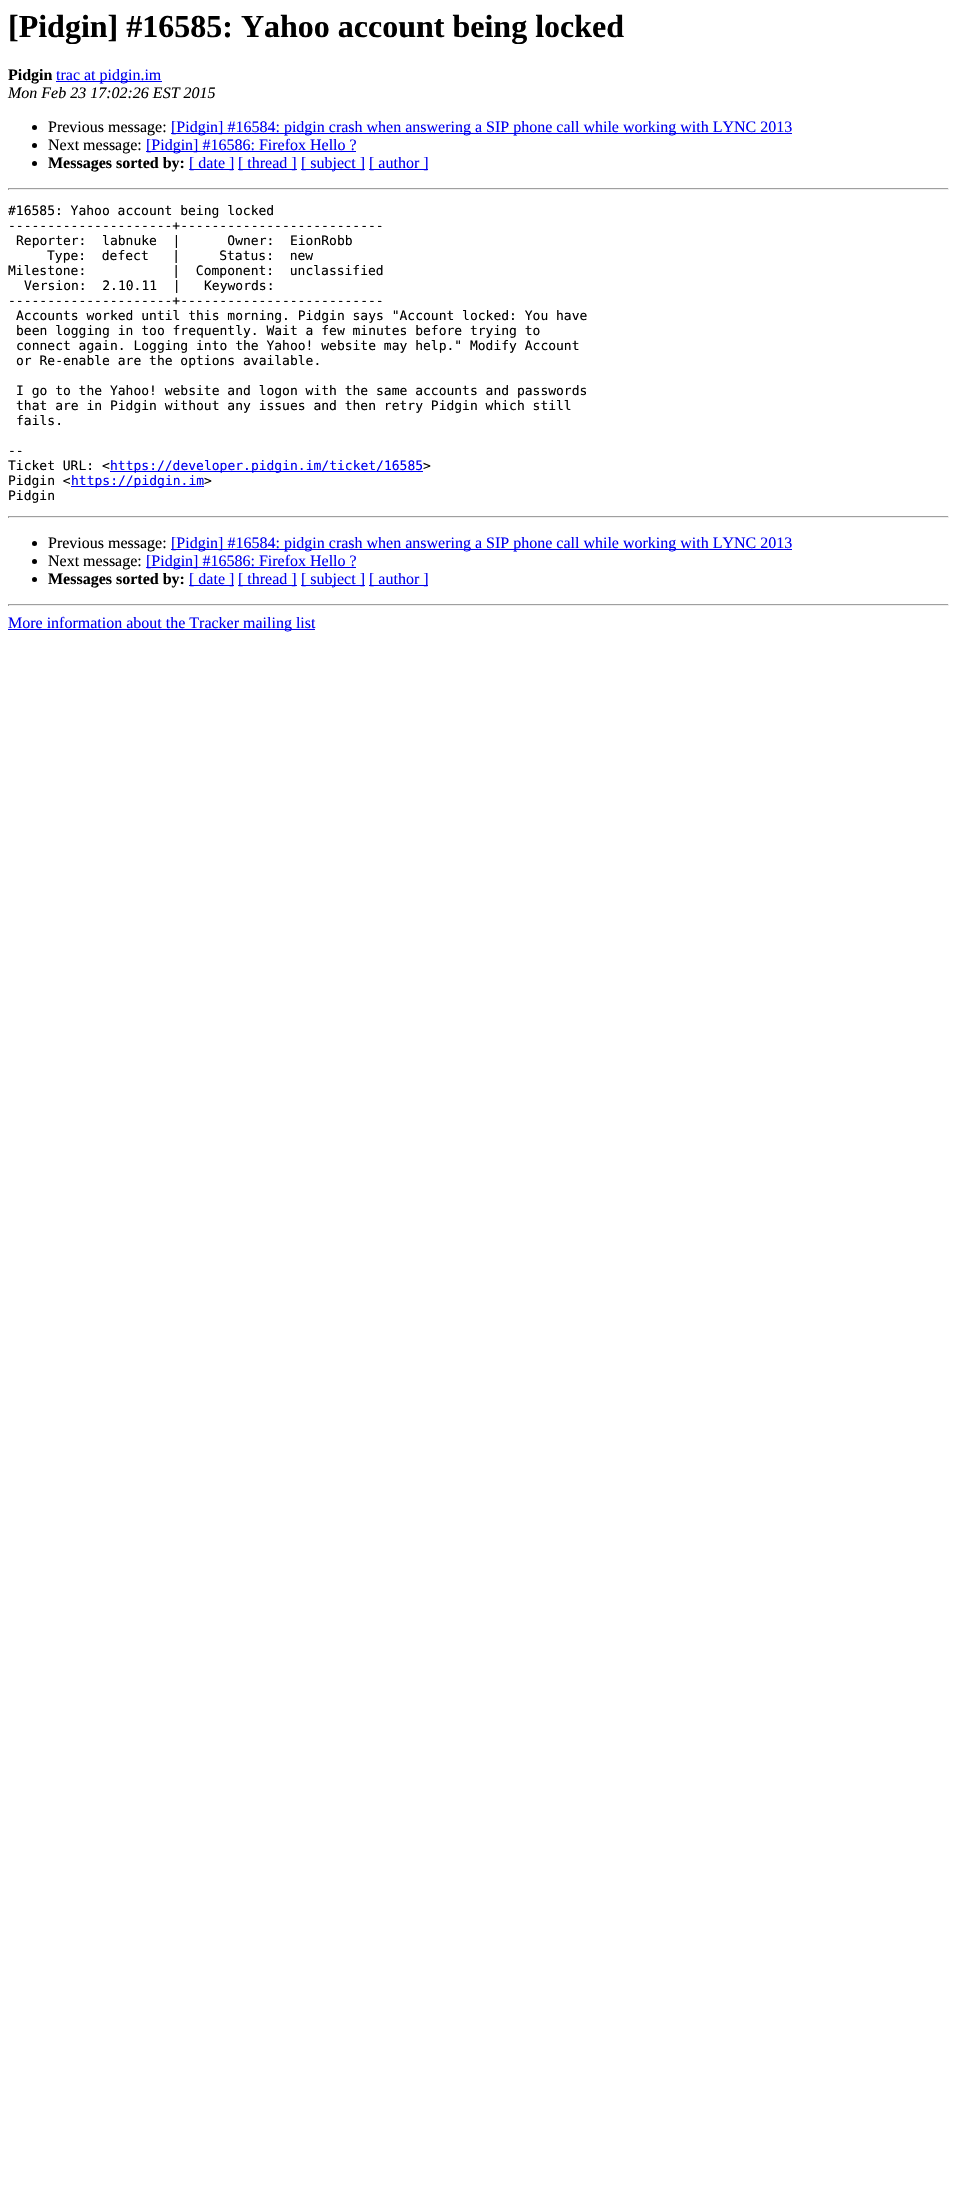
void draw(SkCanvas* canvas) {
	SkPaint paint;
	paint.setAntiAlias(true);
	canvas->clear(0xffffffff);
	SkFont f1(fontMgr->matchFamilyStyle("Liberation Serif", SkFontStyle::Bold()), 32);
	f1.setSubpixel(true);
	paint.setColor(0xff000000);
	canvas->drawString("[Pidgin] #16585: Yahoo account being locked", 8, 37, f1, paint);
	SkFont f2(fontMgr->matchFamilyStyle("Liberation Serif", SkFontStyle::Bold()), 16);
	f2.setSubpixel(true);
	canvas->drawString("Pidgin", 8, 80, f2, paint);
	paint.setColor(0xff0000ee);
	canvas->drawRect(SkRect::MakeXYWH(56, 81, 106, 1), paint);
	SkFont f3(fontMgr->matchFamilyStyle("Liberation Serif", SkFontStyle::Normal()), 16);
	f3.setSubpixel(true);
	canvas->drawString("trac at pidgin.im", 56, 80, f3, paint);
	SkFont f4(fontMgr->matchFamilyStyle("Liberation Serif", SkFontStyle::Italic()), 16);
	f4.setSubpixel(true);
	paint.setColor(0xff000000);
	canvas->drawString("Mon Feb 23 17:02:26 EST 2015", 8, 98, f4, paint);
	canvas->drawCircle(34.5, 127.5, 2.5, paint);
	canvas->drawString("Previous message:", 48, 132, f3, paint);
	paint.setColor(0xff0000ee);
	canvas->drawRect(SkRect::MakeXYWH(171, 133, 621, 1), paint);
	canvas->drawString("[Pidgin] #16584: pidgin crash when answering a SIP phone call while working with LYNC 2013", 171, 132, f3, paint);
	paint.setColor(0xff000000);
	canvas->drawCircle(34.5, 145.5, 2.5, paint);
	canvas->drawString("Next message:", 48, 150, f3, paint);
	paint.setColor(0xff0000ee);
	canvas->drawRect(SkRect::MakeXYWH(146, 151, 210, 1), paint);
	canvas->drawString("[Pidgin] #16586: Firefox Hello ?", 146, 150, f3, paint);
	paint.setColor(0xff000000);
	canvas->drawCircle(34.5, 163.5, 2.5, paint);
	canvas->drawString("Messages sorted by:", 48, 168, f2, paint);
	paint.setColor(0xff0000ee);
	canvas->drawRect(SkRect::MakeXYWH(189, 169, 45, 1), paint);
	canvas->drawString("[ date ]", 189, 168, f3, paint);
	canvas->drawRect(SkRect::MakeXYWH(238, 169, 59, 1), paint);
	canvas->drawString("[ thread ]", 238, 168, f3, paint);
	canvas->drawRect(SkRect::MakeXYWH(301, 169, 64, 1), paint);
	canvas->drawString("[ subject ]", 301, 168, f3, paint);
	canvas->drawRect(SkRect::MakeXYWH(369, 169, 59, 1), paint);
	canvas->drawString("[ author ]", 369, 168, f3, paint);
	paint.setColor(0xff9f9f9f);
	canvas->drawRect(SkRect::MakeXYWH(8, 188, 941, 1), paint);
	paint.setColor(0xffeeeeee);
	canvas->drawRect(SkRect::MakeXYWH(948, 188, 1, 2), paint);
	canvas->drawRect(SkRect::MakeXYWH(8, 189, 941, 1), paint);
	paint.setColor(0xff9f9f9f);
	canvas->drawRect(SkRect::MakeXYWH(8, 188, 1, 2), paint);
	SkFont f5(fontMgr->matchFamilyStyle("DejaVu Sans Mono", SkFontStyle::Normal()), 13);
	f5.setSubpixel(true);
	paint.setColor(0xff000000);
	canvas->drawString("#16585: Yahoo account being locked", 8, 215, f5, paint);
	canvas->drawString("---------------------+--------------------------", 8, 230, f5, paint);
	canvas->drawString("Reporter:  labnuke  |      Owner:  EionRobb", 16, 245, f5, paint);
	canvas->drawString("Type:  defect   |     Status:  new", 47, 260, f5, paint);
	canvas->drawString("Milestone:           |  Component:  unclassified", 8, 275, f5, paint);
	canvas->drawString("Version:  2.10.11  |   Keywords:", 24, 290, f5, paint);
	canvas->drawString("---------------------+--------------------------", 8, 305, f5, paint);
	canvas->drawString("Accounts worked until this morning. Pidgin says \"Account locked: You have", 16, 320, f5, paint);
	canvas->drawString("been logging in too frequently. Wait a few minutes before trying to", 16, 335, f5, paint);
	canvas->drawString("connect again. Logging into the Yahoo! website may help.\" Modify Account", 16, 350, f5, paint);
	canvas->drawString("or Re-enable are the options available.", 16, 365, f5, paint);
	canvas->drawString("I go to the Yahoo! website and logon with the same accounts and passwords", 16, 395, f5, paint);
	canvas->drawString("that are in Pidgin without any issues and then retry Pidgin which still", 16, 410, f5, paint);
	canvas->drawString("fails.", 16, 425, f5, paint);
	canvas->drawString("--", 8, 455, f5, paint);
	canvas->drawString("Ticket URL: <", 8, 470, f5, paint);
	paint.setColor(0xff0000ee);
	canvas->drawRect(SkRect::MakeXYWH(110, 471, 313, 1), paint);
	canvas->drawString("https://developer.pidgin.im/ticket/16585", 110, 470, f5, paint);
	paint.setColor(0xff000000);
	canvas->drawString(">", 423, 470, f5, paint);
	canvas->drawString("Pidgin <", 8, 485, f5, paint);
	paint.setColor(0xff0000ee);
	canvas->drawRect(SkRect::MakeXYWH(71, 486, 133, 1), paint);
	canvas->drawString("https://pidgin.im", 71, 485, f5, paint);
	paint.setColor(0xff000000);
	canvas->drawString(">", 204, 485, f5, paint);
	canvas->drawString("Pidgin", 8, 500, f5, paint);
	paint.setColor(0xff9f9f9f);
	canvas->drawRect(SkRect::MakeXYWH(8, 516, 941, 1), paint);
	paint.setColor(0xffeeeeee);
	canvas->drawRect(SkRect::MakeXYWH(948, 516, 1, 2), paint);
	canvas->drawRect(SkRect::MakeXYWH(8, 517, 941, 1), paint);
	paint.setColor(0xff9f9f9f);
	canvas->drawRect(SkRect::MakeXYWH(8, 516, 1, 2), paint);
	paint.setColor(0xff000000);
	canvas->drawCircle(34.5, 543.5, 2.5, paint);
	canvas->drawString("Previous message:", 48, 548, f3, paint);
	paint.setColor(0xff0000ee);
	canvas->drawRect(SkRect::MakeXYWH(171, 549, 621, 1), paint);
	canvas->drawString("[Pidgin] #16584: pidgin crash when answering a SIP phone call while working with LYNC 2013", 171, 548, f3, paint);
	paint.setColor(0xff000000);
	canvas->drawCircle(34.5, 561.5, 2.5, paint);
	canvas->drawString("Next message:", 48, 566, f3, paint);
	paint.setColor(0xff0000ee);
	canvas->drawRect(SkRect::MakeXYWH(146, 567, 210, 1), paint);
	canvas->drawString("[Pidgin] #16586: Firefox Hello ?", 146, 566, f3, paint);
	paint.setColor(0xff000000);
	canvas->drawCircle(34.5, 579.5, 2.5, paint);
	canvas->drawString("Messages sorted by:", 48, 584, f2, paint);
	paint.setColor(0xff0000ee);
	canvas->drawRect(SkRect::MakeXYWH(189, 585, 45, 1), paint);
	canvas->drawString("[ date ]", 189, 584, f3, paint);
	canvas->drawRect(SkRect::MakeXYWH(238, 585, 59, 1), paint);
	canvas->drawString("[ thread ]", 238, 584, f3, paint);
	canvas->drawRect(SkRect::MakeXYWH(301, 585, 64, 1), paint);
	canvas->drawString("[ subject ]", 301, 584, f3, paint);
	canvas->drawRect(SkRect::MakeXYWH(369, 585, 59, 1), paint);
	canvas->drawString("[ author ]", 369, 584, f3, paint);
	paint.setColor(0xff9f9f9f);
	canvas->drawRect(SkRect::MakeXYWH(8, 604, 941, 1), paint);
	paint.setColor(0xffeeeeee);
	canvas->drawRect(SkRect::MakeXYWH(948, 604, 1, 2), paint);
	canvas->drawRect(SkRect::MakeXYWH(8, 605, 941, 1), paint);
	paint.setColor(0xff9f9f9f);
	canvas->drawRect(SkRect::MakeXYWH(8, 604, 1, 2), paint);
	paint.setColor(0xff0000ee);
	canvas->drawRect(SkRect::MakeXYWH(8, 629, 307, 1), paint);
	canvas->drawString("More information about the Tracker mailing list", 8, 628, f3, paint);
}
